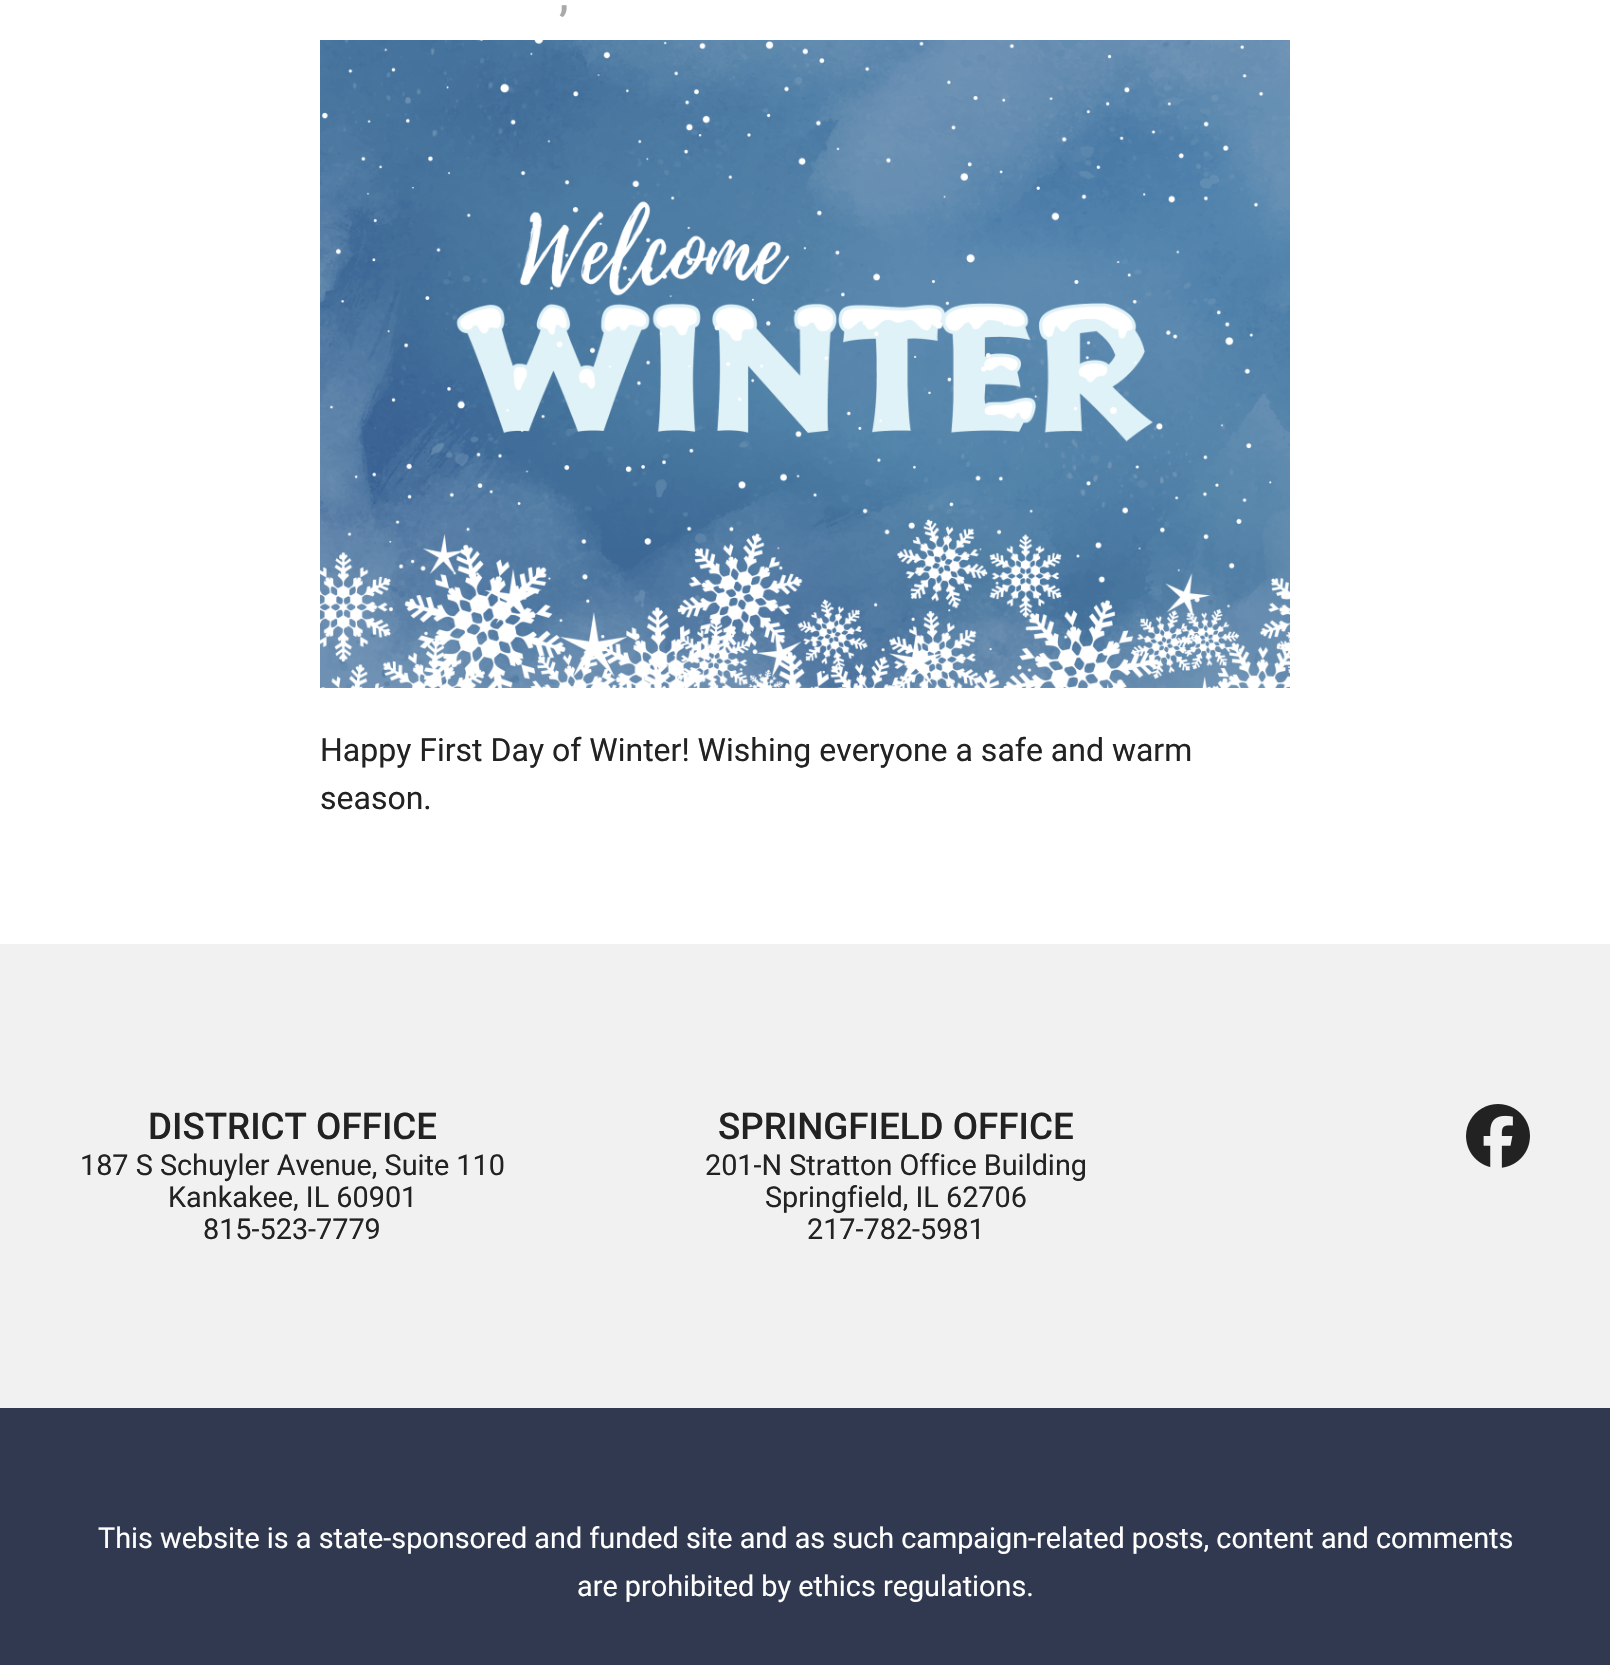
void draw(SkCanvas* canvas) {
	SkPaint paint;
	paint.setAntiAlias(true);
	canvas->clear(0xfff1f1f1);
	paint.setColor(0xffffffff);
	canvas->drawRect(SkRect::MakeXYWH(0, 0, 1610, 944), paint);
	SkFont f1(fontMgr->matchFamilyStyle("Roboto", SkFontStyle::Bold()), 40);
	f1.setSubpixel(true);
	paint.setColor(0xffa9a9a9);
	canvas->drawString(",", 559, 10, f1, paint);
	canvas->drawImageRect(SkImages::DeferredFromEncodedData(SkData::MakeFromFileName("img1.png")), SkRect::MakeXYWH(320, 40, 970, 648), SkSamplingOptions());
	SkFont f2(fontMgr->matchFamilyStyle("Roboto", SkFontStyle::Normal()), 32);
	f2.setSubpixel(true);
	paint.setColor(0xff222222);
	canvas->drawString("Happy First Day of Winter! Wishing everyone a safe and warm", 320, 761, f2, paint);
	canvas->drawString("season.", 320, 809, f2, paint);
	SkFont f3(fontMgr->matchFamilyStyle("Roboto", SkFontStyle(500, SkFontStyle::kNormal_Width, SkFontStyle::kUpright_Slant)), 36.75);
	f3.setSubpixel(true);
	canvas->drawString("DISTRICT OFFICE", 148, 1139, f3, paint);
	SkFont f4(fontMgr->matchFamilyStyle("Roboto", SkFontStyle::Normal()), 28.8);
	f4.setSubpixel(true);
	canvas->drawString("187 S Schuyler Avenue, Suite 110", 80, 1175, f4, paint);
	canvas->drawString("Kankakee, IL 60901", 168, 1207, f4, paint);
	canvas->drawString("815-523-7779", 203, 1239, f4, paint);
	canvas->drawString("SPRINGFIELD OFFICE", 718, 1139, f3, paint);
	canvas->drawString("201-N Stratton Office Building", 705, 1175, f4, paint);
	canvas->drawString("Springfield, IL 62706", 765, 1207, f4, paint);
	canvas->drawString("217-782-5981", 807, 1239, f4, paint);
	canvas->drawImageRect(SkImages::DeferredFromEncodedData(SkData::MakeFromFileName("img2.png")), SkRect::MakeXYWH(1466, 1104, 64, 64), SkSamplingOptions());
	paint.setColor(0xff30394f);
	canvas->drawRect(SkRect::MakeXYWH(0, 1408, 1610, 257), paint);
	paint.setColor(0xffffffff);
	canvas->drawString("This website is a state-sponsored and funded site and as such campaign-related posts, content and comments", 98, 1548, f4, paint);
	canvas->drawString("are prohibited by ethics regulations.", 577, 1596, f4, paint);
}
